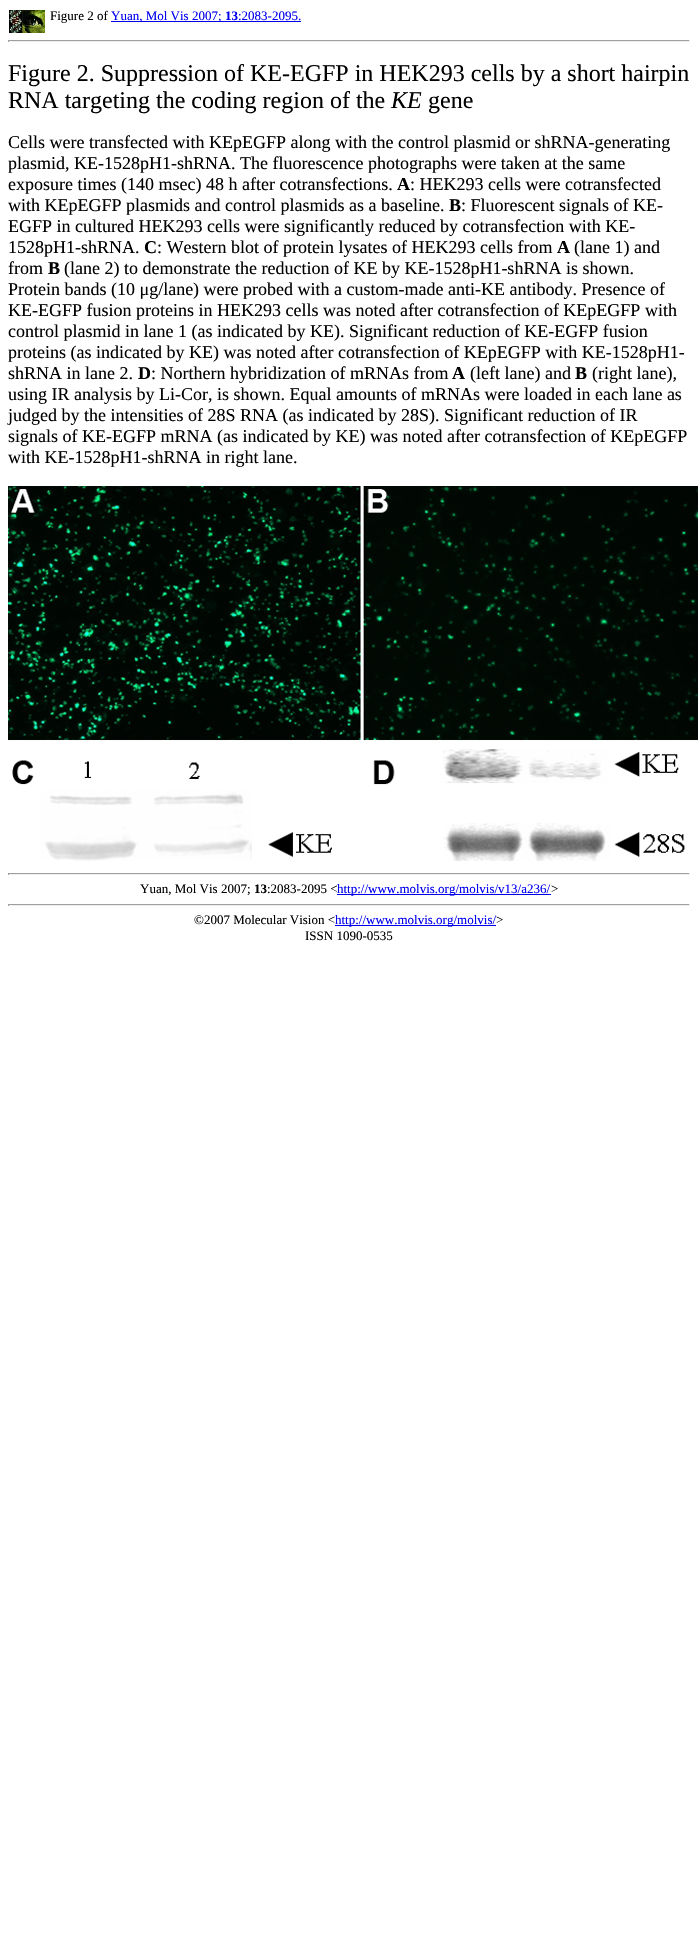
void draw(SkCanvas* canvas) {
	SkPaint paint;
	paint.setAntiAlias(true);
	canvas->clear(0xffffffff);
	canvas->drawImageRect(SkImages::DeferredFromEncodedData(SkData::MakeFromFileName("img1.png")), SkRect::MakeXYWH(9, 10, 36, 23), SkSamplingOptions());
	SkFont f1(fontMgr->matchFamilyStyle("Liberation Serif", SkFontStyle::Normal()), 13);
	f1.setSubpixel(true);
	paint.setColor(0xff000000);
	canvas->drawString("Figure 2 of", 50, 20, f1, paint);
	paint.setColor(0xff0000ee);
	canvas->drawRect(SkRect::MakeXYWH(111, 21, 190, 1), paint);
	canvas->drawString("Yuan, Mol Vis 2007;", 111, 20, f1, paint);
	SkFont f2(fontMgr->matchFamilyStyle("Liberation Serif", SkFontStyle::Bold()), 13);
	f2.setSubpixel(true);
	canvas->drawString("13", 225, 20, f2, paint);
	canvas->drawString(":2083-2095.", 238, 20, f1, paint);
	paint.setColor(0xff9f9f9f);
	canvas->drawRect(SkRect::MakeXYWH(8, 40, 682, 1), paint);
	paint.setColor(0xffeeeeee);
	canvas->drawRect(SkRect::MakeXYWH(689, 40, 1, 2), paint);
	canvas->drawRect(SkRect::MakeXYWH(8, 41, 682, 1), paint);
	paint.setColor(0xff9f9f9f);
	canvas->drawRect(SkRect::MakeXYWH(8, 40, 1, 2), paint);
	SkFont f3(fontMgr->matchFamilyStyle("Liberation Serif", SkFontStyle::Normal()), 24);
	f3.setSubpixel(true);
	paint.setColor(0xff000000);
	canvas->drawString("Figure 2. Suppression of KE-EGFP in HEK293 cells by a short hairpin", 8, 81, f3, paint);
	canvas->drawString("RNA targeting the coding region of the", 8, 108, f3, paint);
	SkFont f4(fontMgr->matchFamilyStyle("Liberation Serif", SkFontStyle::Italic()), 24);
	f4.setSubpixel(true);
	canvas->drawString("KE", 391, 108, f4, paint);
	canvas->drawString("gene", 428, 108, f3, paint);
	SkFont f5(fontMgr->matchFamilyStyle("Liberation Serif", SkFontStyle::Normal()), 18);
	f5.setSubpixel(true);
	canvas->drawString("Cells were transfected with KEpEGFP along with the control plasmid or shRNA-generating", 8, 148, f5, paint);
	canvas->drawString("plasmid, KE-1528pH1-shRNA. The fluorescence photographs were taken at the same", 8, 169, f5, paint);
	canvas->drawString("exposure times (140 msec) 48 h after cotransfections.", 8, 190, f5, paint);
	SkFont f6(fontMgr->matchFamilyStyle("Liberation Serif", SkFontStyle::Bold()), 18);
	f6.setSubpixel(true);
	canvas->drawString("A", 397, 190, f6, paint);
	canvas->drawString(": HEK293 cells were cotransfected", 410, 190, f5, paint);
	canvas->drawString("with KEpEGFP plasmids and control plasmids as a baseline.", 8, 211, f5, paint);
	canvas->drawString("B", 449, 211, f6, paint);
	canvas->drawString(": Fluorescent signals of KE-", 461, 211, f5, paint);
	canvas->drawString("EGFP in cultured HEK293 cells were significantly reduced by cotransfection with KE-", 8, 232, f5, paint);
	canvas->drawString("1528pH1-shRNA.", 8, 253, f5, paint);
	canvas->drawString("C", 144, 253, f6, paint);
	canvas->drawString(": Western blot of protein lysates of HEK293 cells from", 157, 253, f5, paint);
	canvas->drawString("A", 557, 253, f6, paint);
	canvas->drawString("(lane 1) and", 574, 253, f5, paint);
	canvas->drawString("from", 8, 274, f5, paint);
	canvas->drawString("B", 48, 274, f6, paint);
	canvas->drawString("(lane 2) to demonstrate the reduction of KE by KE-1528pH1-shRNA is shown.", 64, 274, f5, paint);
	canvas->drawString("Protein bands (10 μg/lane) were probed with a custom-made anti-KE antibody. Presence of", 8, 295, f5, paint);
	canvas->drawString("KE-EGFP fusion proteins in HEK293 cells was noted after cotransfection of KEpEGFP with", 8, 316, f5, paint);
	canvas->drawString("control plasmid in lane 1 (as indicated by KE). Significant reduction of KE-EGFP fusion", 8, 337, f5, paint);
	canvas->drawString("proteins (as indicated by KE) was noted after cotransfection of KEpEGFP with KE-1528pH1-", 8, 358, f5, paint);
	canvas->drawString("shRNA in lane 2.", 8, 379, f5, paint);
	canvas->drawString("D", 138, 379, f6, paint);
	canvas->drawString(": Northern hybridization of mRNAs from", 151, 379, f5, paint);
	canvas->drawString("A", 452, 379, f6, paint);
	canvas->drawString("(left lane) and", 470, 379, f5, paint);
	canvas->drawString("B", 575, 379, f6, paint);
	canvas->drawString("(right lane),", 592, 379, f5, paint);
	canvas->drawString("using IR analysis by Li-Cor, is shown. Equal amounts of mRNAs were loaded in each lane as", 8, 400, f5, paint);
	canvas->drawString("judged by the intensities of 28S RNA (as indicated by 28S). Significant reduction of IR", 8, 421, f5, paint);
	canvas->drawString("signals of KE-EGFP mRNA (as indicated by KE) was noted after cotransfection of KEpEGFP", 8, 442, f5, paint);
	canvas->drawString("with KE-1528pH1-shRNA in right lane.", 8, 463, f5, paint);
	canvas->drawImageRect(SkImages::DeferredFromEncodedData(SkData::MakeFromFileName("img2.png")), SkRect::MakeXYWH(8, 486, 690, 375), SkSamplingOptions());
	paint.setColor(0xff9f9f9f);
	canvas->drawRect(SkRect::MakeXYWH(8, 873, 682, 1), paint);
	paint.setColor(0xffeeeeee);
	canvas->drawRect(SkRect::MakeXYWH(689, 873, 1, 2), paint);
	canvas->drawRect(SkRect::MakeXYWH(8, 874, 682, 1), paint);
	paint.setColor(0xff9f9f9f);
	canvas->drawRect(SkRect::MakeXYWH(8, 873, 1, 2), paint);
	paint.setColor(0xff000000);
	canvas->drawString("Yuan, Mol Vis 2007;", 140, 893, f1, paint);
	canvas->drawString("13", 254, 893, f2, paint);
	canvas->drawString(":2083-2095 <", 267, 893, f1, paint);
	paint.setColor(0xff0000ee);
	canvas->drawRect(SkRect::MakeXYWH(337, 894, 214, 1), paint);
	canvas->drawString("http://www.molvis.org/molvis/v13/a236/", 337, 893, f1, paint);
	paint.setColor(0xff000000);
	canvas->drawString(">", 551, 893, f1, paint);
	paint.setColor(0xff9f9f9f);
	canvas->drawRect(SkRect::MakeXYWH(8, 904, 682, 1), paint);
	paint.setColor(0xffeeeeee);
	canvas->drawRect(SkRect::MakeXYWH(689, 904, 1, 2), paint);
	canvas->drawRect(SkRect::MakeXYWH(8, 905, 682, 1), paint);
	paint.setColor(0xff9f9f9f);
	canvas->drawRect(SkRect::MakeXYWH(8, 904, 1, 2), paint);
	paint.setColor(0xff000000);
	canvas->drawString("©2007 Molecular Vision <", 194, 924, f1, paint);
	paint.setColor(0xff0000ee);
	canvas->drawRect(SkRect::MakeXYWH(335, 925, 161, 1), paint);
	canvas->drawString("http://www.molvis.org/molvis/", 335, 924, f1, paint);
	paint.setColor(0xff000000);
	canvas->drawString(">", 496, 924, f1, paint);
	canvas->drawString("ISSN 1090-0535", 305, 940, f1, paint);
}
